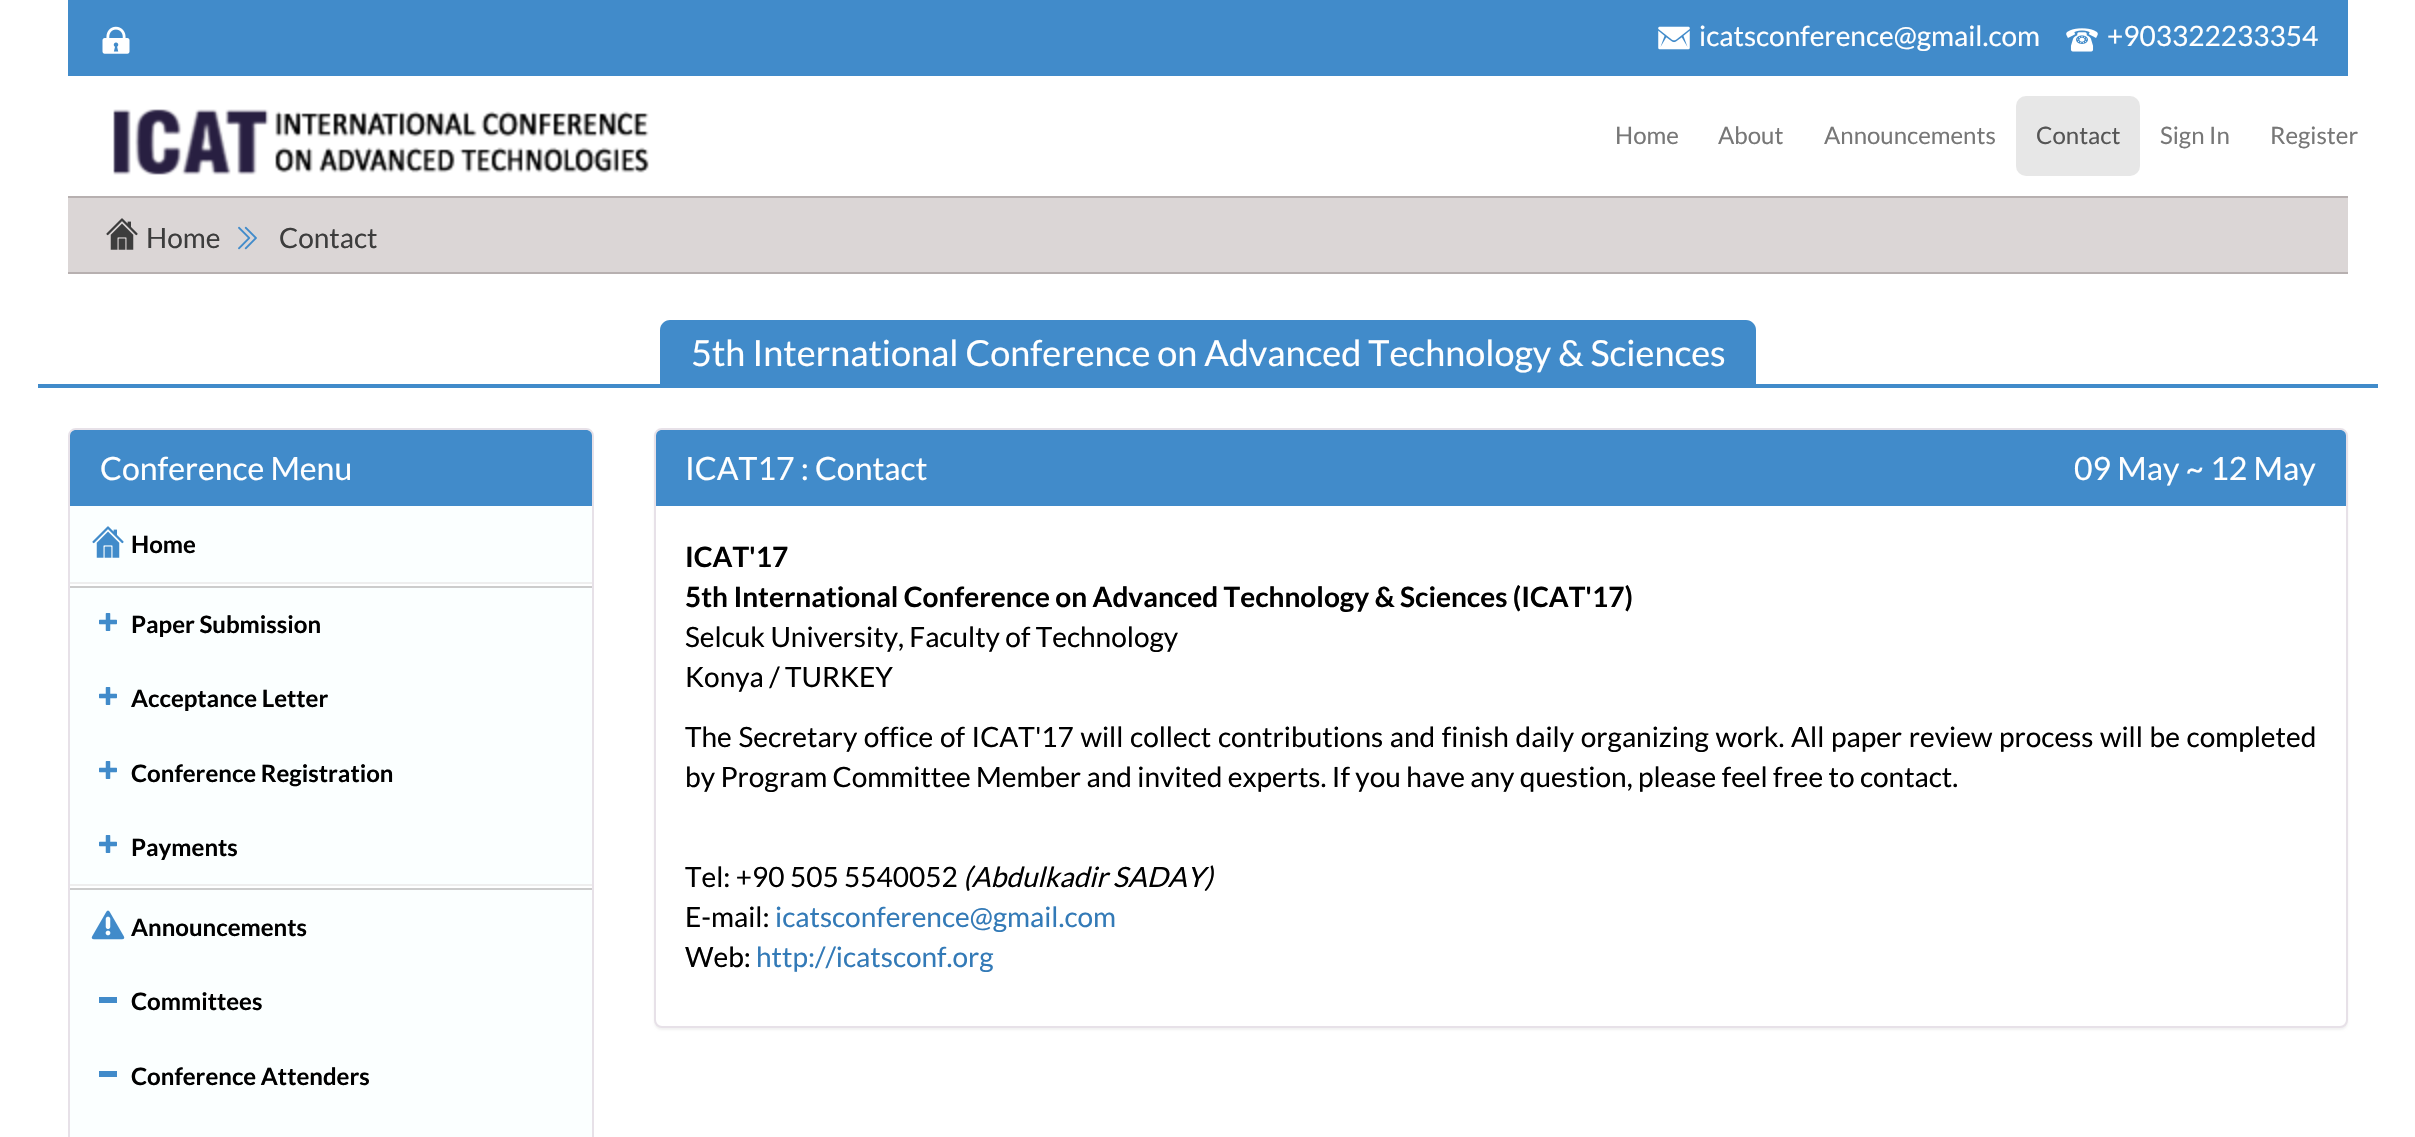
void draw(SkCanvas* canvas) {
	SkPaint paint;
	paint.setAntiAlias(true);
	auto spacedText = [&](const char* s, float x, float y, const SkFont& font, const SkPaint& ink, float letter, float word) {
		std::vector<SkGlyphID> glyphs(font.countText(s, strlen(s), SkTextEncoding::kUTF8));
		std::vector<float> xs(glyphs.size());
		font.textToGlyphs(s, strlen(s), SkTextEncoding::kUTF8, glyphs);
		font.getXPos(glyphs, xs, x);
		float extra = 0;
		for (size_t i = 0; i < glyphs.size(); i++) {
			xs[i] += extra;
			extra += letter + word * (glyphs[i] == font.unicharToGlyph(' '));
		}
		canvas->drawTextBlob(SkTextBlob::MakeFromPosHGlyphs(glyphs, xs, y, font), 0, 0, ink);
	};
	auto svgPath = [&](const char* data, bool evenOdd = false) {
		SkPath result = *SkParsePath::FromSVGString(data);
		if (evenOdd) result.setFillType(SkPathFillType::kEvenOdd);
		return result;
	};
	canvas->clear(0xffffffff);
	paint.setColor(0xff418bca);
	canvas->drawRect(SkRect::MakeXYWH(68, 0, 2280, 76), paint);
	canvas->drawImageRect(SkImages::DeferredFromEncodedData(SkData::MakeFromFileName("img1.png")), SkRect::MakeXYWH(102, 26, 28, 28), SkSamplingOptions());
	canvas->drawImageRect(SkImages::DeferredFromEncodedData(SkData::MakeFromFileName("img2.png")), SkRect::MakeXYWH(1658, 26, 32, 24), SkSamplingOptions());
	SkFont f1(fontMgr->matchFamilyStyle("Lato", SkFontStyle::Normal()), 28);
	f1.setSubpixel(true);
	paint.setColor(0xffffffff);
	canvas->drawString("icatsconference@gmail.com", 1699, 46, f1, paint);
	canvas->drawImageRect(SkImages::DeferredFromEncodedData(SkData::MakeFromFileName("img3.png")), SkRect::MakeXYWH(2066, 28, 32, 24), SkSamplingOptions());
	canvas->drawString("+903322233354", 2107, 46, f1, paint);
	canvas->drawImageRect(SkImages::DeferredFromEncodedData(SkData::MakeFromFileName("img4.png")), SkRect::MakeXYWH(113, 109, 536, 66), SkSamplingOptions());
	SkFont f2(fontMgr->matchFamilyStyle("Lato", SkFontStyle::Normal()), 24);
	f2.setSubpixel(true);
	paint.setColor(0xff777777);
	canvas->drawString("Home", 1615, 144, f2, paint);
	canvas->drawString("About", 1718, 144, f2, paint);
	canvas->drawString("Announcements", 1824, 144, f2, paint);
	paint.setColor(0xffe7e7e7);
	canvas->drawRoundRect(SkRect::MakeXYWH(2016, 96, 124, 80), 10, 10, paint);
	paint.setColor(0xff555555);
	canvas->drawString("Contact", 2036, 144, f2, paint);
	paint.setColor(0xff777777);
	canvas->drawString("Sign In", 2160, 144, f2, paint);
	canvas->drawString("Register", 2270, 144, f2, paint);
	paint.setColor(0xffdbd6d6);
	canvas->drawRect(SkRect::MakeXYWH(68, 198, 2280, 74), paint);
	paint.setColor(0xffb7b0b0);
	canvas->drawRect(SkRect::MakeXYWH(68, 196, 2280, 2), paint);
	canvas->drawRect(SkRect::MakeXYWH(68, 272, 2280, 2), paint);
	canvas->drawImageRect(SkImages::DeferredFromEncodedData(SkData::MakeFromFileName("img5.png")), SkRect::MakeXYWH(106, 218, 32, 32), SkSamplingOptions());
	paint.setColor(0xff3d3d3d);
	canvas->drawString("Home", 146, 248, f1, paint);
	canvas->drawImageRect(SkImages::DeferredFromEncodedData(SkData::MakeFromFileName("img6.png")), SkRect::MakeXYWH(238, 226, 19, 24), SkSamplingOptions());
	canvas->drawString("Contact", 279, 248, f1, paint);
	paint.setColor(0xff418bca);
	canvas->drawRect(SkRect::MakeXYWH(38, 384, 2340, 4), paint);
	canvas->drawPath(svgPath("M670 320H1746C1751.5 320 1756 324.5 1756 330V384H660V330C660 324.5 664.5 320 670 320Z"), paint);
	SkFont f3(fontMgr->matchFamilyStyle("Lato", SkFontStyle::Normal()), 36);
	f3.setSubpixel(true);
	paint.setColor(0xffffffff);
	canvas->drawString("5th International Conference on Advanced Technology & Sciences", 691, 366, f3, paint);
	paint.setStroke(true);
	paint.setStrokeWidth(2);
	paint.setColor(0xffe7e1e8);
	canvas->drawRoundRect(SkRect::MakeXYWH(69, 429, 524, 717), 7, 7, paint);
	paint.setStroke(false);
	paint.setColor(0xff418bca);
	canvas->drawPath(svgPath("M76 430H586C589.5 430 592 432.5 592 436V506H70V436C70 432.5 72.5 430 76 430Z"), paint);
	SkFont f4(fontMgr->matchFamilyStyle("Lato", SkFontStyle::Normal()), 32);
	f4.setSubpixel(true);
	paint.setColor(0xffffffff);
	canvas->drawString("Conference Menu", 100, 480, f4, paint);
	paint.setColor(0xfffbffff);
	canvas->drawRect(SkRect::MakeXYWH(70, 506, 522, 76), paint);
	canvas->drawImageRect(SkImages::DeferredFromEncodedData(SkData::MakeFromFileName("img7.png")), SkRect::MakeXYWH(92, 526, 32, 32), SkSamplingOptions());
	SkFont f5(fontMgr->matchFamilyStyle("Lato", SkFontStyle::Bold()), 24);
	f5.setSubpixel(true);
	paint.setColor(0xff000000);
	canvas->drawString("Home", 131, 553, f5, paint);
	paint.setColor(0xffeeeeee);
	canvas->drawRect(SkRect::MakeXYWH(70, 582, 522, 2), paint);
	paint.setColor(0xffcccccc);
	canvas->drawRect(SkRect::MakeXYWH(70, 586, 522, 2), paint);
	paint.setColor(0xfffbffff);
	canvas->drawRect(SkRect::MakeXYWH(70, 588, 522, 296), paint);
	canvas->drawImageRect(SkImages::DeferredFromEncodedData(SkData::MakeFromFileName("img8.png")), SkRect::MakeXYWH(99, 613, 18, 18), SkSamplingOptions());
	paint.setColor(0xff000000);
	canvas->drawString("Paper Submission", 131, 633, f5, paint);
	canvas->drawImageRect(SkImages::DeferredFromEncodedData(SkData::MakeFromFileName("img8.png")), SkRect::MakeXYWH(99, 687, 18, 18), SkSamplingOptions());
	canvas->drawString("Acceptance Letter", 131, 707, f5, paint);
	canvas->drawImageRect(SkImages::DeferredFromEncodedData(SkData::MakeFromFileName("img8.png")), SkRect::MakeXYWH(99, 761, 18, 18), SkSamplingOptions());
	canvas->drawString("Conference Registration", 131, 782, f5, paint);
	canvas->drawImageRect(SkImages::DeferredFromEncodedData(SkData::MakeFromFileName("img8.png")), SkRect::MakeXYWH(99, 835, 18, 18), SkSamplingOptions());
	canvas->drawString("Payments", 131, 856, f5, paint);
	paint.setColor(0xffeeeeee);
	canvas->drawRect(SkRect::MakeXYWH(70, 884, 522, 2), paint);
	paint.setColor(0xffcccccc);
	canvas->drawRect(SkRect::MakeXYWH(70, 888, 522, 2), paint);
	paint.setColor(0xfffbffff);
	canvas->drawRect(SkRect::MakeXYWH(70, 890, 522, 247), paint);
	canvas->drawImageRect(SkImages::DeferredFromEncodedData(SkData::MakeFromFileName("img9.png")), SkRect::MakeXYWH(91, 910, 34, 30), SkSamplingOptions());
	paint.setColor(0xff000000);
	canvas->drawString("Announcements", 131, 936, f5, paint);
	paint.setColor(0xff418bca);
	canvas->drawRect(SkRect::MakeXYWH(99, 997, 18, 6), paint);
	paint.setColor(0xff000000);
	canvas->drawString("Committees", 131, 1010, f5, paint);
	paint.setColor(0xff418bca);
	canvas->drawRect(SkRect::MakeXYWH(99, 1071, 18, 6), paint);
	paint.setColor(0xff000000);
	canvas->drawString("Conference Attenders", 131, 1085, f5, paint);
	paint.setColor(0x0d000000);
	paint.setMaskFilter(SkMaskFilter::MakeBlur(kNormal_SkBlurStyle, 1));
	canvas->drawRoundRect(SkRect::MakeXYWH(654, 430, 1694, 600), 8, 8, paint);
	paint.setMaskFilter(nullptr);
	paint.setColor(0xffffffff);
	canvas->drawRoundRect(SkRect::MakeXYWH(655, 429, 1692, 598), 7, 7, paint);
	paint.setStroke(true);
	paint.setColor(0xffe7e1e8);
	canvas->drawRoundRect(SkRect::MakeXYWH(655, 429, 1692, 598), 7, 7, paint);
	paint.setStroke(false);
	paint.setColor(0xff418bca);
	canvas->drawPath(svgPath("M662 430H2340C2343.5 430 2346 432.5 2346 436V506H656V436C656 432.5 658.5 430 662 430Z"), paint);
	paint.setColor(0xffffffff);
	canvas->drawString("ICAT17 : Contact", 685, 480, f4, paint);
	canvas->drawString("09 May ~ 12 May", 2074, 480, f4, paint);
	SkFont f6(fontMgr->matchFamilyStyle("Lato", SkFontStyle::Bold()), 28);
	f6.setSubpixel(true);
	paint.setColor(0xff000000);
	canvas->drawString("ICAT'17", 685, 567, f6, paint);
	canvas->drawString("5th International Conference on Advanced Technology & Sciences (ICAT'17)", 685, 607, f6, paint);
	canvas->drawString("Selcuk University, Faculty of Technology", 685, 647, f1, paint);
	canvas->drawString("Konya / TURKEY", 685, 687, f1, paint);
	spacedText("The Secretary office of ICAT'17 will collect contributions and finish daily organizing work. All paper review process will be completed", 685, 747, f1, paint, 0, 1.25);
	canvas->drawString("by Program Committee Member and invited experts. If you have any question, please feel free to contact.", 685, 787, f1, paint);
	canvas->drawString("Tel: +90 505 5540052", 685, 887, f1, paint);
	SkFont f7(fontMgr->matchFamilyStyle("Lato", SkFontStyle::Italic()), 28);
	f7.setSubpixel(true);
	canvas->drawString("(Abdulkadir SADAY)", 963, 887, f7, paint);
	canvas->drawString("E-mail:", 685, 927, f1, paint);
	paint.setColor(0xff337ab7);
	canvas->drawString("icatsconference@gmail.com", 775, 927, f1, paint);
	paint.setColor(0xff000000);
	canvas->drawString("Web:", 685, 967, f1, paint);
	paint.setColor(0xff337ab7);
	canvas->drawString("http://icatsconf.org", 756, 967, f1, paint);
}
